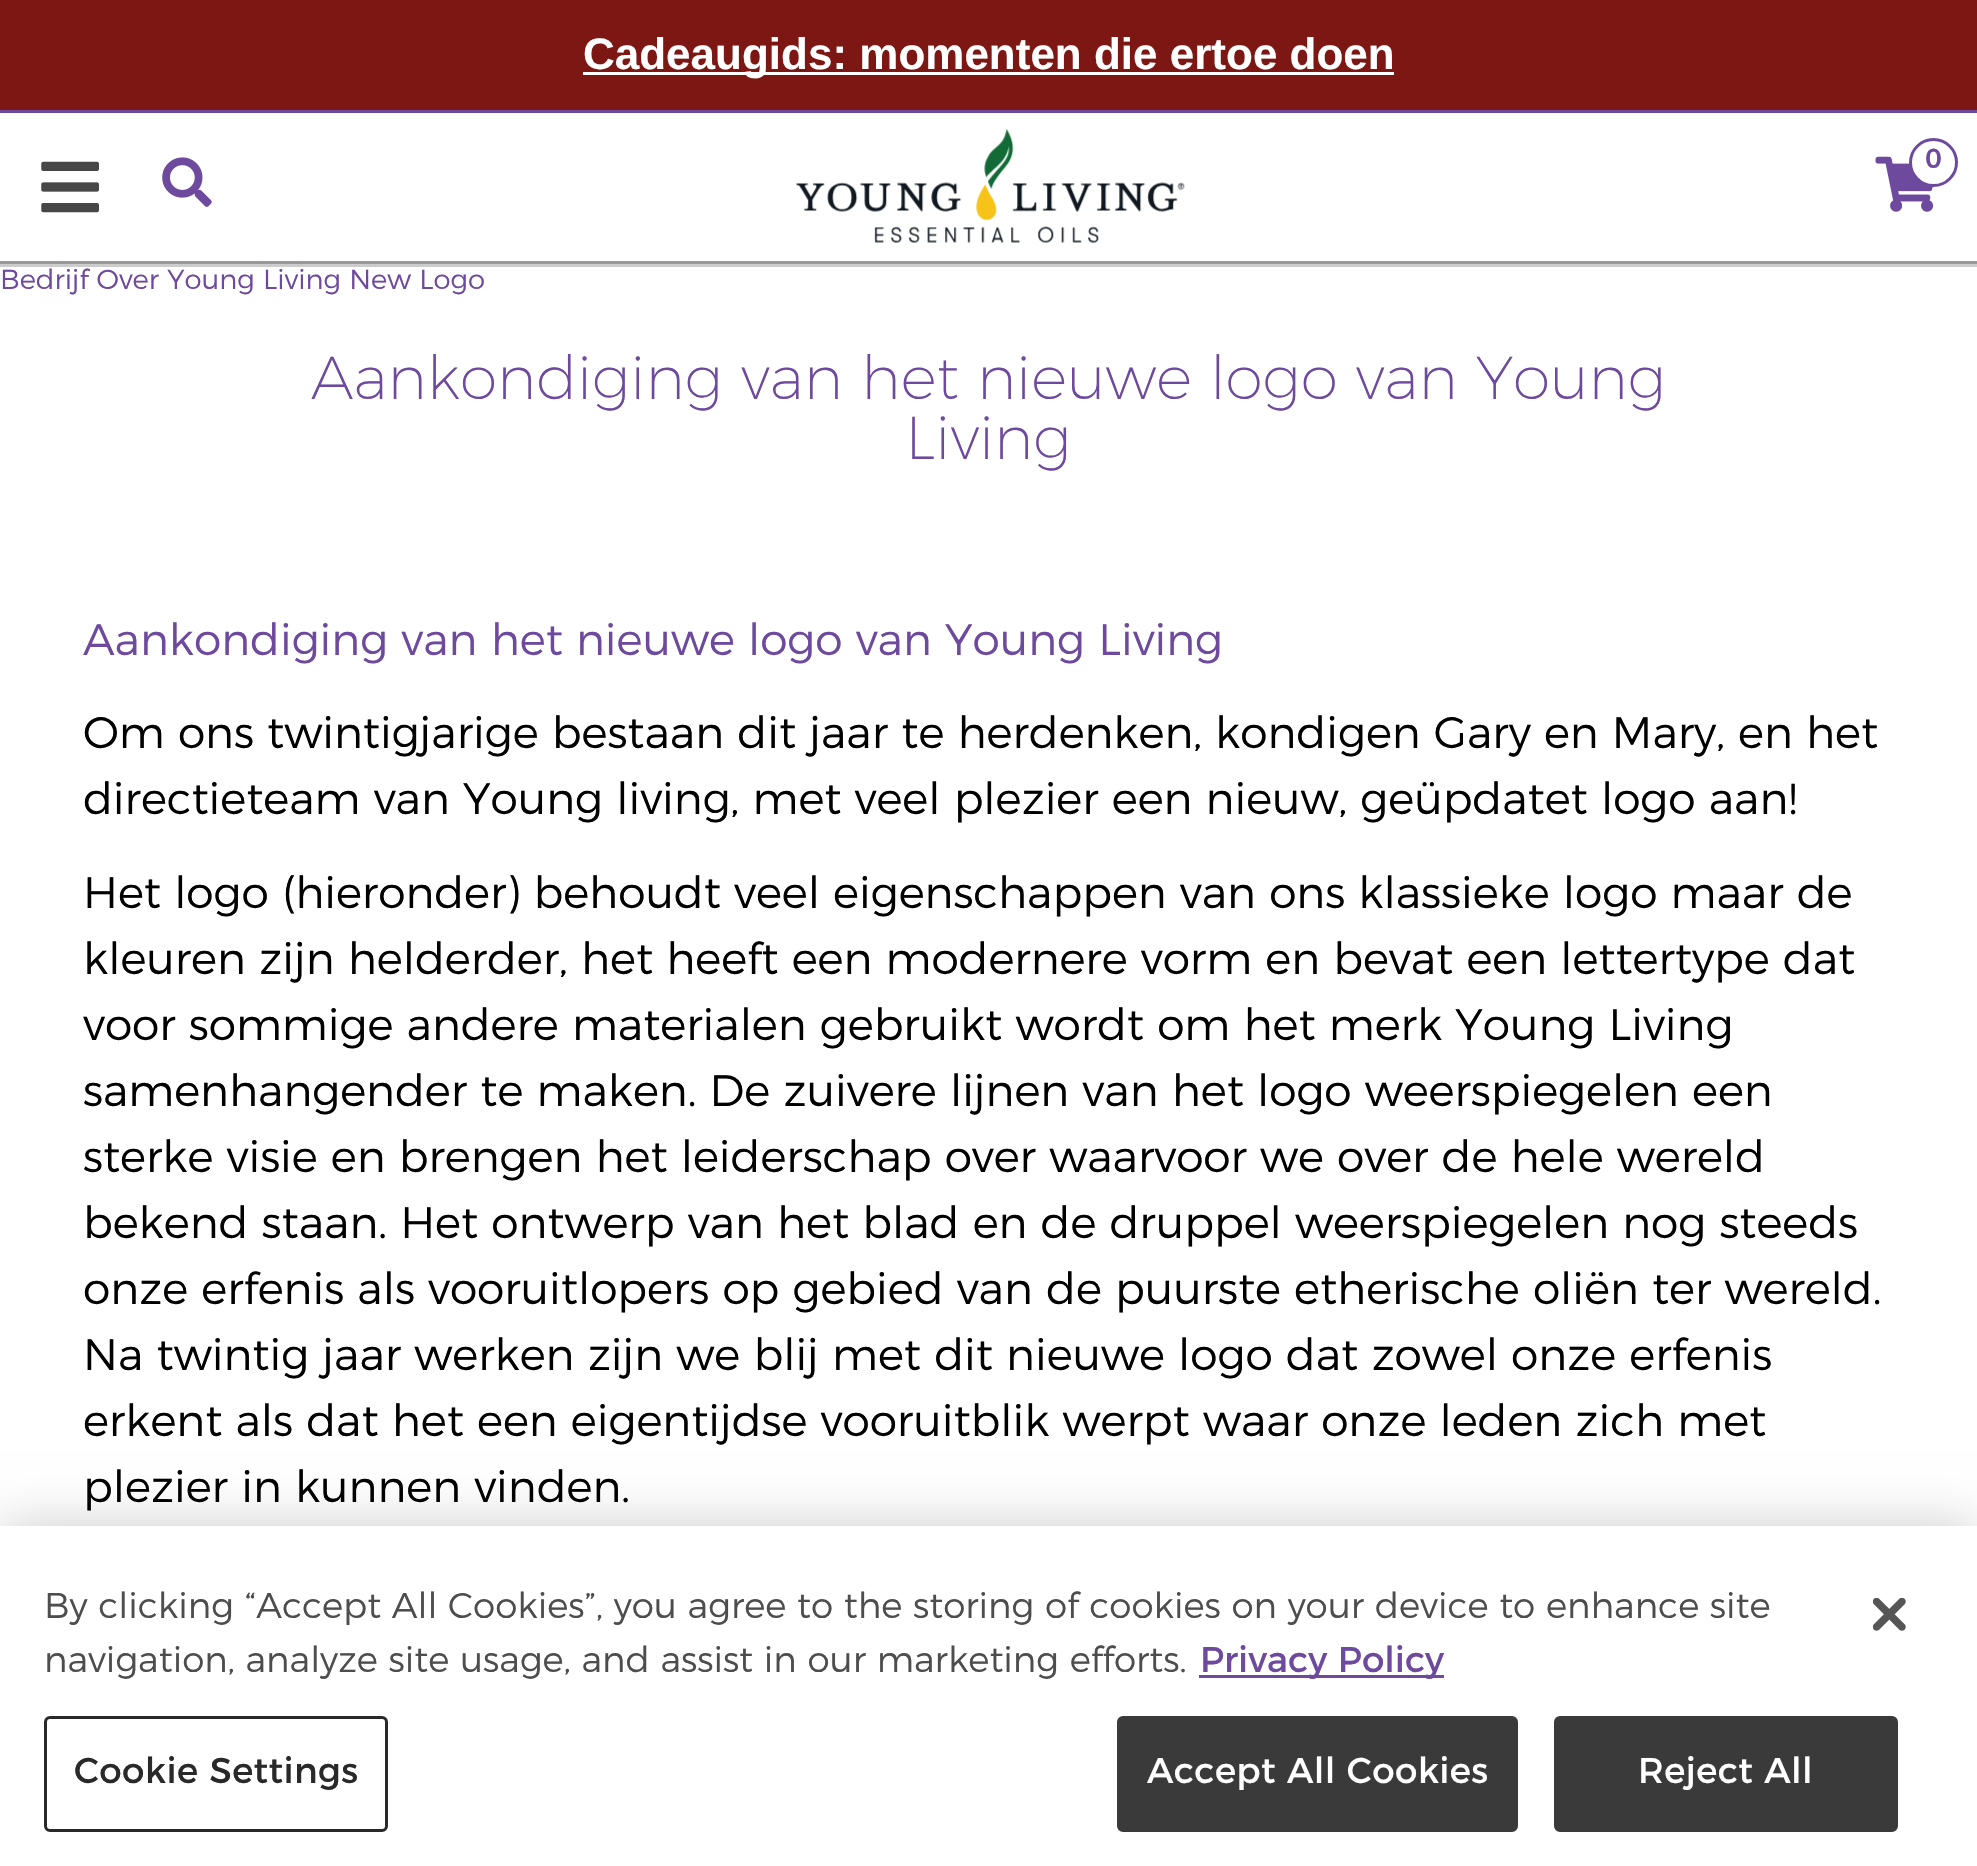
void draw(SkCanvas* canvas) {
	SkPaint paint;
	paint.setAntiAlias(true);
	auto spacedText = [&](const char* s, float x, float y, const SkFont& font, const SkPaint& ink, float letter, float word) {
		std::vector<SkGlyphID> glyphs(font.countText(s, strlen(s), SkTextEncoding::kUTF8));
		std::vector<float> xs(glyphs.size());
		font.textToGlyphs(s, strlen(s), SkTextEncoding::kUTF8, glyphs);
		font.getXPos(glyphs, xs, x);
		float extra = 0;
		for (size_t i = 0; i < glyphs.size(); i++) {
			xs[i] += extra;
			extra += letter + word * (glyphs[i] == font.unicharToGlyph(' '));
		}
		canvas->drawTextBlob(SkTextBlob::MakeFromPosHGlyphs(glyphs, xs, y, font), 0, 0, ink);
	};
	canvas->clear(0xffffffff);
	paint.setColor(0xff7c1714);
	canvas->drawRect(SkRect::MakeXYWH(0, 0, 1977, 110), paint);
	paint.setColor(0xffffffff);
	canvas->drawRect(SkRect::MakeXYWH(583, 72, 811, 3), paint);
	SkFont f1(fontMgr->matchFamilyStyle("Liberation Sans", SkFontStyle::Bold()), 44);
	f1.setSubpixel(true);
	canvas->drawString("Cadeaugids: momenten die ertoe doen", 583, 69, f1, paint);
	paint.setColor(0xff6e4a9e);
	canvas->drawRect(SkRect::MakeXYWH(0, 110, 1977, 3), paint);
	paint.setColor(0xff999999);
	canvas->drawRect(SkRect::MakeXYWH(0, 261, 1977, 3), paint);
	canvas->drawImageRect(SkImages::DeferredFromEncodedData(SkData::MakeFromFileName("img1.png")), SkRect::MakeXYWH(41, 161, 58, 52), SkSamplingOptions());
	canvas->drawImageRect(SkImages::DeferredFromEncodedData(SkData::MakeFromFileName("img2.png")), SkRect::MakeXYWH(162, 157, 50, 50), SkSamplingOptions());
	canvas->drawImageRect(SkImages::DeferredFromEncodedData(SkData::MakeFromFileName("img3.png")), SkRect::MakeXYWH(796, 128, 389, 115), SkSamplingOptions());
	canvas->drawImageRect(SkImages::DeferredFromEncodedData(SkData::MakeFromFileName("img4.png")), SkRect::MakeXYWH(1875, 156, 59, 56), SkSamplingOptions());
	paint.setColor(0xffffffff);
	canvas->drawCircle(1933.5, 162.5, 23, paint);
	paint.setStroke(true);
	paint.setStrokeWidth(3);
	paint.setColor(0xff6e4a9e);
	canvas->drawCircle(1933.5, 162.5, 23, paint);
	SkFont f2(fontMgr->matchFamilyStyle("Montserrat", SkFontStyle(500, SkFontStyle::kNormal_Width, SkFontStyle::kUpright_Slant)), 27.5);
	f2.setSubpixel(true);
	paint.setStroke(false);
	canvas->drawString("0", 1925, 168, f2, paint);
	paint.setColor(0xffcccccc);
	canvas->drawRect(SkRect::MakeXYWH(0, 264, 1977, 3), paint);
	SkFont f3(fontMgr->matchFamilyStyle("Montserrat", SkFontStyle(300, SkFontStyle::kNormal_Width, SkFontStyle::kUpright_Slant)), 27.5);
	f3.setSubpixel(true);
	paint.setColor(0xff6e4a9e);
	canvas->drawString("Bedrijf Over Young Living New Logo", 0, 289, f3, paint);
	SkFont f4(fontMgr->matchFamilyStyle("Montserrat", SkFontStyle(200, SkFontStyle::kNormal_Width, SkFontStyle::kUpright_Slant)), 60.5);
	f4.setSubpixel(true);
	canvas->drawString("Aankondiging van het nieuwe logo van Young", 311, 399, f4, paint);
	canvas->drawString("Living", 905, 459, f4, paint);
	SkFont f5(fontMgr->matchFamilyStyle("Montserrat", SkFontStyle(300, SkFontStyle::kNormal_Width, SkFontStyle::kUpright_Slant)), 44);
	f5.setSubpixel(true);
	canvas->drawString("Aankondiging van het nieuwe logo van Young Living", 83, 655, f5, paint);
	paint.setColor(0xff000000);
	canvas->drawString("Om ons twintigjarige bestaan dit jaar te herdenken, kondigen Gary en Mary, en het", 83, 748, f5, paint);
	canvas->drawString("directieteam van Young living, met veel plezier een nieuw, geüpdatet logo aan!", 83, 814, f5, paint);
	canvas->drawString("Het logo (hieronder) behoudt veel eigenschappen van ons klassieke logo maar de", 83, 908, f5, paint);
	canvas->drawString("kleuren zijn helderder, het heeft een modernere vorm en bevat een lettertype dat", 83, 974, f5, paint);
	canvas->drawString("voor sommige andere materialen gebruikt wordt om het merk Young Living", 83, 1040, f5, paint);
	canvas->drawString("samenhangender te maken. De zuivere lijnen van het logo weerspiegelen een", 83, 1106, f5, paint);
	canvas->drawString("sterke visie en brengen het leiderschap over waarvoor we over de hele wereld", 83, 1172, f5, paint);
	canvas->drawString("bekend staan. Het ontwerp van het blad en de druppel weerspiegelen nog steeds", 83, 1238, f5, paint);
	canvas->drawString("onze erfenis als vooruitlopers op gebied van de puurste etherische oliën ter wereld.", 83, 1304, f5, paint);
	canvas->drawString("Na twintig jaar werken zijn we blij met dit nieuwe logo dat zowel onze erfenis", 83, 1370, f5, paint);
	canvas->drawString("erkent als dat het een eigentijdse vooruitblik werpt waar onze leden zich met", 83, 1436, f5, paint);
	canvas->drawString("plezier in kunnen vinden.", 83, 1502, f5, paint);
	paint.setColor(0x33000000);
	paint.setMaskFilter(SkMaskFilter::MakeBlur(kNormal_SkBlurStyle, 25));
	canvas->drawRect(SkRect::MakeXYWH(0, 1526, 1977, 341), paint);
	paint.setMaskFilter(nullptr);
	paint.setColor(0xffffffff);
	canvas->drawRect(SkRect::MakeXYWH(0, 1526, 1977, 340), paint);
	SkFont f6(fontMgr->matchFamilyStyle("Montserrat", SkFontStyle(300, SkFontStyle::kNormal_Width, SkFontStyle::kUpright_Slant)), 35.75);
	f6.setSubpixel(true);
	paint.setColor(0xff4d4d4d);
	canvas->drawString("By clicking “Accept All Cookies”, you agree to the storing of cookies on your device to enhance site", 44, 1618, f6, paint);
	canvas->drawString("navigation, analyze site usage, and assist in our marketing efforts.", 44, 1672, f6, paint);
	paint.setColor(0xff6e4a9e);
	canvas->drawRect(SkRect::MakeXYWH(1199, 1675, 245, 3), paint);
	SkFont f7(fontMgr->matchFamilyStyle("Montserrat", SkFontStyle::Normal()), 35.75);
	f7.setSubpixel(true);
	canvas->drawString("Privacy Policy", 1200, 1672, f7, paint);
	paint.setStroke(true);
	paint.setColor(0xff292929);
	canvas->drawRoundRect(SkRect::MakeXYWH(45.5, 1717.5, 341, 113), 4.5, 4.5, paint);
	paint.setStroke(false);
	spacedText("Cookie Settings", 74, 1783, f7, paint, 0.4, 0);
	paint.setColor(0xff3a3a3a);
	canvas->drawRoundRect(SkRect::MakeXYWH(1118.5, 1717.5, 398, 113), 4.5, 4.5, paint);
	paint.setStroke(true);
	canvas->drawRoundRect(SkRect::MakeXYWH(1118.5, 1717.5, 398, 113), 4.5, 4.5, paint);
	paint.setStroke(false);
	paint.setColor(0xffffffff);
	spacedText("Accept All Cookies", 1147, 1783, f7, paint, 0.4, 0);
	paint.setColor(0xff3a3a3a);
	canvas->drawRoundRect(SkRect::MakeXYWH(1555.5, 1717.5, 341, 113), 4.5, 4.5, paint);
	paint.setStroke(true);
	canvas->drawRoundRect(SkRect::MakeXYWH(1555.5, 1717.5, 341, 113), 4.5, 4.5, paint);
	paint.setStroke(false);
	paint.setColor(0xffffffff);
	spacedText("Reject All", 1638, 1783, f7, paint, 0.4, 0);
	canvas->drawImageRect(SkImages::DeferredFromEncodedData(SkData::MakeFromFileName("img5.png")), SkRect::MakeXYWH(1873, 1598, 33, 33), SkSamplingOptions());
}
